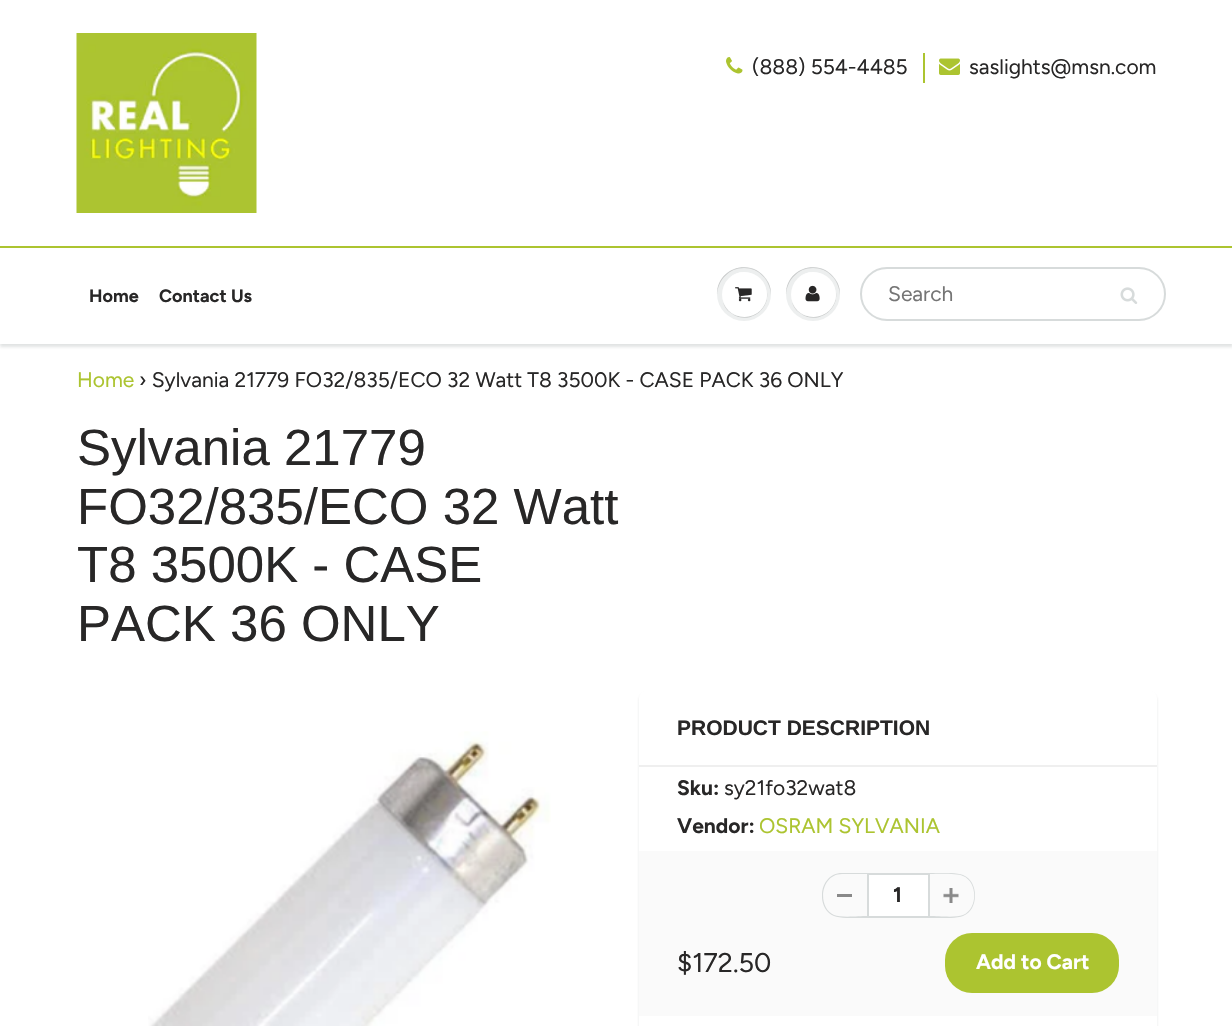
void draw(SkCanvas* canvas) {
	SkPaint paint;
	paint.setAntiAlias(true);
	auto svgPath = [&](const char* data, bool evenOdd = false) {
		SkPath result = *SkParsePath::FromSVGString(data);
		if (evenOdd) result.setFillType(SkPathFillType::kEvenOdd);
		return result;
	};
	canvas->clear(0xffffffff);
	canvas->drawImageRect(SkImages::DeferredFromEncodedData(SkData::MakeFromFileName("img1.png")), SkRect::MakeXYWH(76, 33, 181, 180), SkSamplingOptions());
	canvas->drawImageRect(SkImages::DeferredFromEncodedData(SkData::MakeFromFileName("img2.png")), SkRect::MakeXYWH(726, 57, 17, 17), SkSamplingOptions());
	SkFont f1(fontMgr->matchFamilyStyle("Figtree", SkFontStyle::Normal()), 21);
	f1.setSubpixel(true);
	paint.setColor(0xff282727);
	canvas->drawString("(888) 554-4485", 752, 74, f1, paint);
	paint.setColor(0xffacc430);
	canvas->drawRect(SkRect::MakeXYWH(923, 53, 2, 30), paint);
	canvas->drawImageRect(SkImages::DeferredFromEncodedData(SkData::MakeFromFileName("img3.png")), SkRect::MakeXYWH(939, 58, 21, 17), SkSamplingOptions());
	paint.setColor(0xff282727);
	canvas->drawString("saslights@msn.com", 969, 74, f1, paint);
	paint.setColor(0x1f0b191c);
	paint.setMaskFilter(SkMaskFilter::MakeBlur(kNormal_SkBlurStyle, 1.5));
	canvas->drawRect(SkRect::MakeXYWH(0, 249, 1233, 98), paint);
	paint.setMaskFilter(nullptr);
	paint.setColor(0xffffffff);
	canvas->drawRect(SkRect::MakeXYWH(0, 248, 1232, 96), paint);
	paint.setColor(0xffacc430);
	canvas->drawRect(SkRect::MakeXYWH(0, 246, 1232, 2), paint);
	SkFont f2(fontMgr->matchFamilyStyle("Figtree", SkFontStyle::Bold()), 18);
	f2.setSubpixel(true);
	paint.setColor(0xff282727);
	canvas->drawString("Home", 89, 302, f2, paint);
	canvas->drawString("Contact Us", 159, 302, f2, paint);
	paint.setColor(0xffedefef);
	canvas->drawCircle(744, 294, 27, paint);
	paint.setColor(0xffc9cbcb);
	canvas->drawPath(svgPath("M744 268C759 268 770 280 771 295C771 289 770 284 766 279C751 257 716 268 717 295C718 280 729 268 744 268Z"), paint);
	canvas->drawPath(svgPath("M723 302C724 306 727 311 731 313C749 327 773 308 766 288C774 315 733 329 723 302Z"), paint);
	paint.setColor(0xffffffff);
	canvas->drawCircle(744.5, 294.5, 22.5, paint);
	canvas->drawPath(svgPath("M744 273C762 273 769 290 765 303C774 281 746 262 729 278C733 275 738 273 744 273Z"), paint);
	canvas->drawImageRect(SkImages::DeferredFromEncodedData(SkData::MakeFromFileName("img4.png")), SkRect::MakeXYWH(735, 287, 17, 15), SkSamplingOptions());
	paint.setColor(0xffedefef);
	canvas->drawCircle(813, 294, 27, paint);
	paint.setColor(0xffc9cbcb);
	canvas->drawPath(svgPath("M813 268C828 268 839 280 840 295C840 289 839 284 835 279C820 257 785 268 786 295C787 280 798 268 813 268Z"), paint);
	canvas->drawPath(svgPath("M792 302C793 306 796 311 800 313C818 327 842 308 835 288C843 315 802 329 792 302Z"), paint);
	paint.setColor(0xffffffff);
	canvas->drawCircle(813.5, 294.5, 22.5, paint);
	canvas->drawPath(svgPath("M813 273C831 273 838 290 834 303C843 281 815 262 798 278C802 275 807 273 813 273Z"), paint);
	canvas->drawImageRect(SkImages::DeferredFromEncodedData(SkData::MakeFromFileName("img5.png")), SkRect::MakeXYWH(805, 285, 15, 17), SkSamplingOptions());
	paint.setStroke(true);
	paint.setStrokeWidth(2);
	paint.setColor(0xffd7dbdb);
	canvas->drawRoundRect(SkRect::MakeXYWH(861, 268, 304, 52), 26, 26, paint);
	paint.setStroke(false);
	paint.setColor(0xff757575);
	canvas->drawString("Search", 888, 301, f1, paint);
	canvas->drawImageRect(SkImages::DeferredFromEncodedData(SkData::MakeFromFileName("img6.png")), SkRect::MakeXYWH(1120, 287, 18, 17), SkSamplingOptions());
	paint.setColor(0xffacc430);
	canvas->drawString("Home", 77, 387, f1, paint);
	paint.setColor(0xff282727);
	canvas->drawString("› Sylvania 21779 FO32/835/ECO 32 Watt T8 3500K - CASE PACK 36 ONLY", 139, 387, f1, paint);
	SkFont f3(fontMgr->matchFamilyStyle("Arimo", SkFontStyle::Normal()), 51);
	f3.setSubpixel(true);
	canvas->drawString("Sylvania 21779", 77, 465, f3, paint);
	canvas->drawString("FO32/835/ECO 32 Watt", 77, 524, f3, paint);
	canvas->drawString("T8 3500K - CASE", 77, 582, f3, paint);
	canvas->drawString("PACK 36 ONLY", 77, 641, f3, paint);
	canvas->drawImageRect(SkImages::DeferredFromEncodedData(SkData::MakeFromFileName("img7.png")), SkRect::MakeXYWH(148, 731, 403, 295), SkSamplingOptions());
	paint.setColor(0x1a0b191c);
	paint.setMaskFilter(SkMaskFilter::MakeBlur(kNormal_SkBlurStyle, 1.5));
	canvas->drawRoundRect(SkRect::MakeXYWH(639, 693, 518, 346), 8, 8, paint);
	paint.setMaskFilter(nullptr);
	paint.setColor(0xffffffff);
	canvas->drawRoundRect(SkRect::MakeXYWH(639, 690, 518, 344), 8, 8, paint);
	paint.setColor(0xffefefef);
	canvas->drawRect(SkRect::MakeXYWH(639, 765, 518, 2), paint);
	SkFont f4(fontMgr->matchFamilyStyle("Arimo", SkFontStyle::Bold()), 21);
	f4.setSubpixel(true);
	paint.setColor(0xff282727);
	canvas->drawString("PRODUCT DESCRIPTION", 677, 735, f4, paint);
	SkFont f5(fontMgr->matchFamilyStyle("Figtree", SkFontStyle::Bold()), 21);
	f5.setSubpixel(true);
	canvas->drawString("Sku:", 677, 795, f5, paint);
	canvas->drawString("sy21fo32wat8", 724, 795, f1, paint);
	canvas->drawString("Vendor:", 677, 833, f5, paint);
	paint.setColor(0xffacc430);
	canvas->drawString("OSRAM SYLVANIA", 759, 833, f1, paint);
	paint.setColor(0xfffafafa);
	canvas->drawRect(SkRect::MakeXYWH(639, 851, 518, 165), paint);
	paint.setColor(0xff898989);
	canvas->drawRect(SkRect::MakeXYWH(837, 894, 15, 3), paint);
	canvas->save();
	canvas->clipRect(SkRect::MakeXYWH(822, 873, 153, 45));
	paint.setColor(0xffd7dbdb);
	canvas->drawPath(svgPath("M842 873H867V918C859 918 841 919 834 916C815 908 819 873 842 873ZM842 874H867V916C859 916 841 918 834 915C817 908 820 874 842 874Z", true), paint);
	canvas->restore();
	paint.setColor(0xffffffff);
	canvas->drawRect(SkRect::MakeXYWH(868, 874, 61, 43), paint);
	paint.setStroke(true);
	paint.setColor(0xffd7dbdb);
	canvas->drawRect(SkRect::MakeXYWH(868, 874, 61, 43), paint);
	paint.setStroke(false);
	paint.setColor(0xff282727);
	canvas->drawString("1", 893, 902, f5, paint);
	canvas->drawImageRect(SkImages::DeferredFromEncodedData(SkData::MakeFromFileName("img8.png")), SkRect::MakeXYWH(943, 888, 16, 15), SkSamplingOptions());
	canvas->save();
	canvas->clipRect(SkRect::MakeXYWH(822, 873, 153, 45));
	paint.setColor(0xffd7dbdb);
	canvas->drawPath(svgPath("M930 873C938 873 956 872 963 875C979 881 979 910 963 916C956 919 938 918 930 918ZM930 874C938 874 956 873 963 876C978 882 978 909 963 915C956 918 938 916 930 916Z", true), paint);
	canvas->restore();
	SkFont f6(fontMgr->matchFamilyStyle("Figtree", SkFontStyle::Normal()), 27);
	f6.setSubpixel(true);
	paint.setColor(0xff282727);
	canvas->drawString("$172.50", 677, 972, f6, paint);
	paint.setColor(0xffacc430);
	canvas->drawRoundRect(SkRect::MakeXYWH(945, 933, 174, 60), 27, 27, paint);
	paint.setColor(0xffffffff);
	canvas->drawString("Add to Cart", 976, 969, f5, paint);
}
